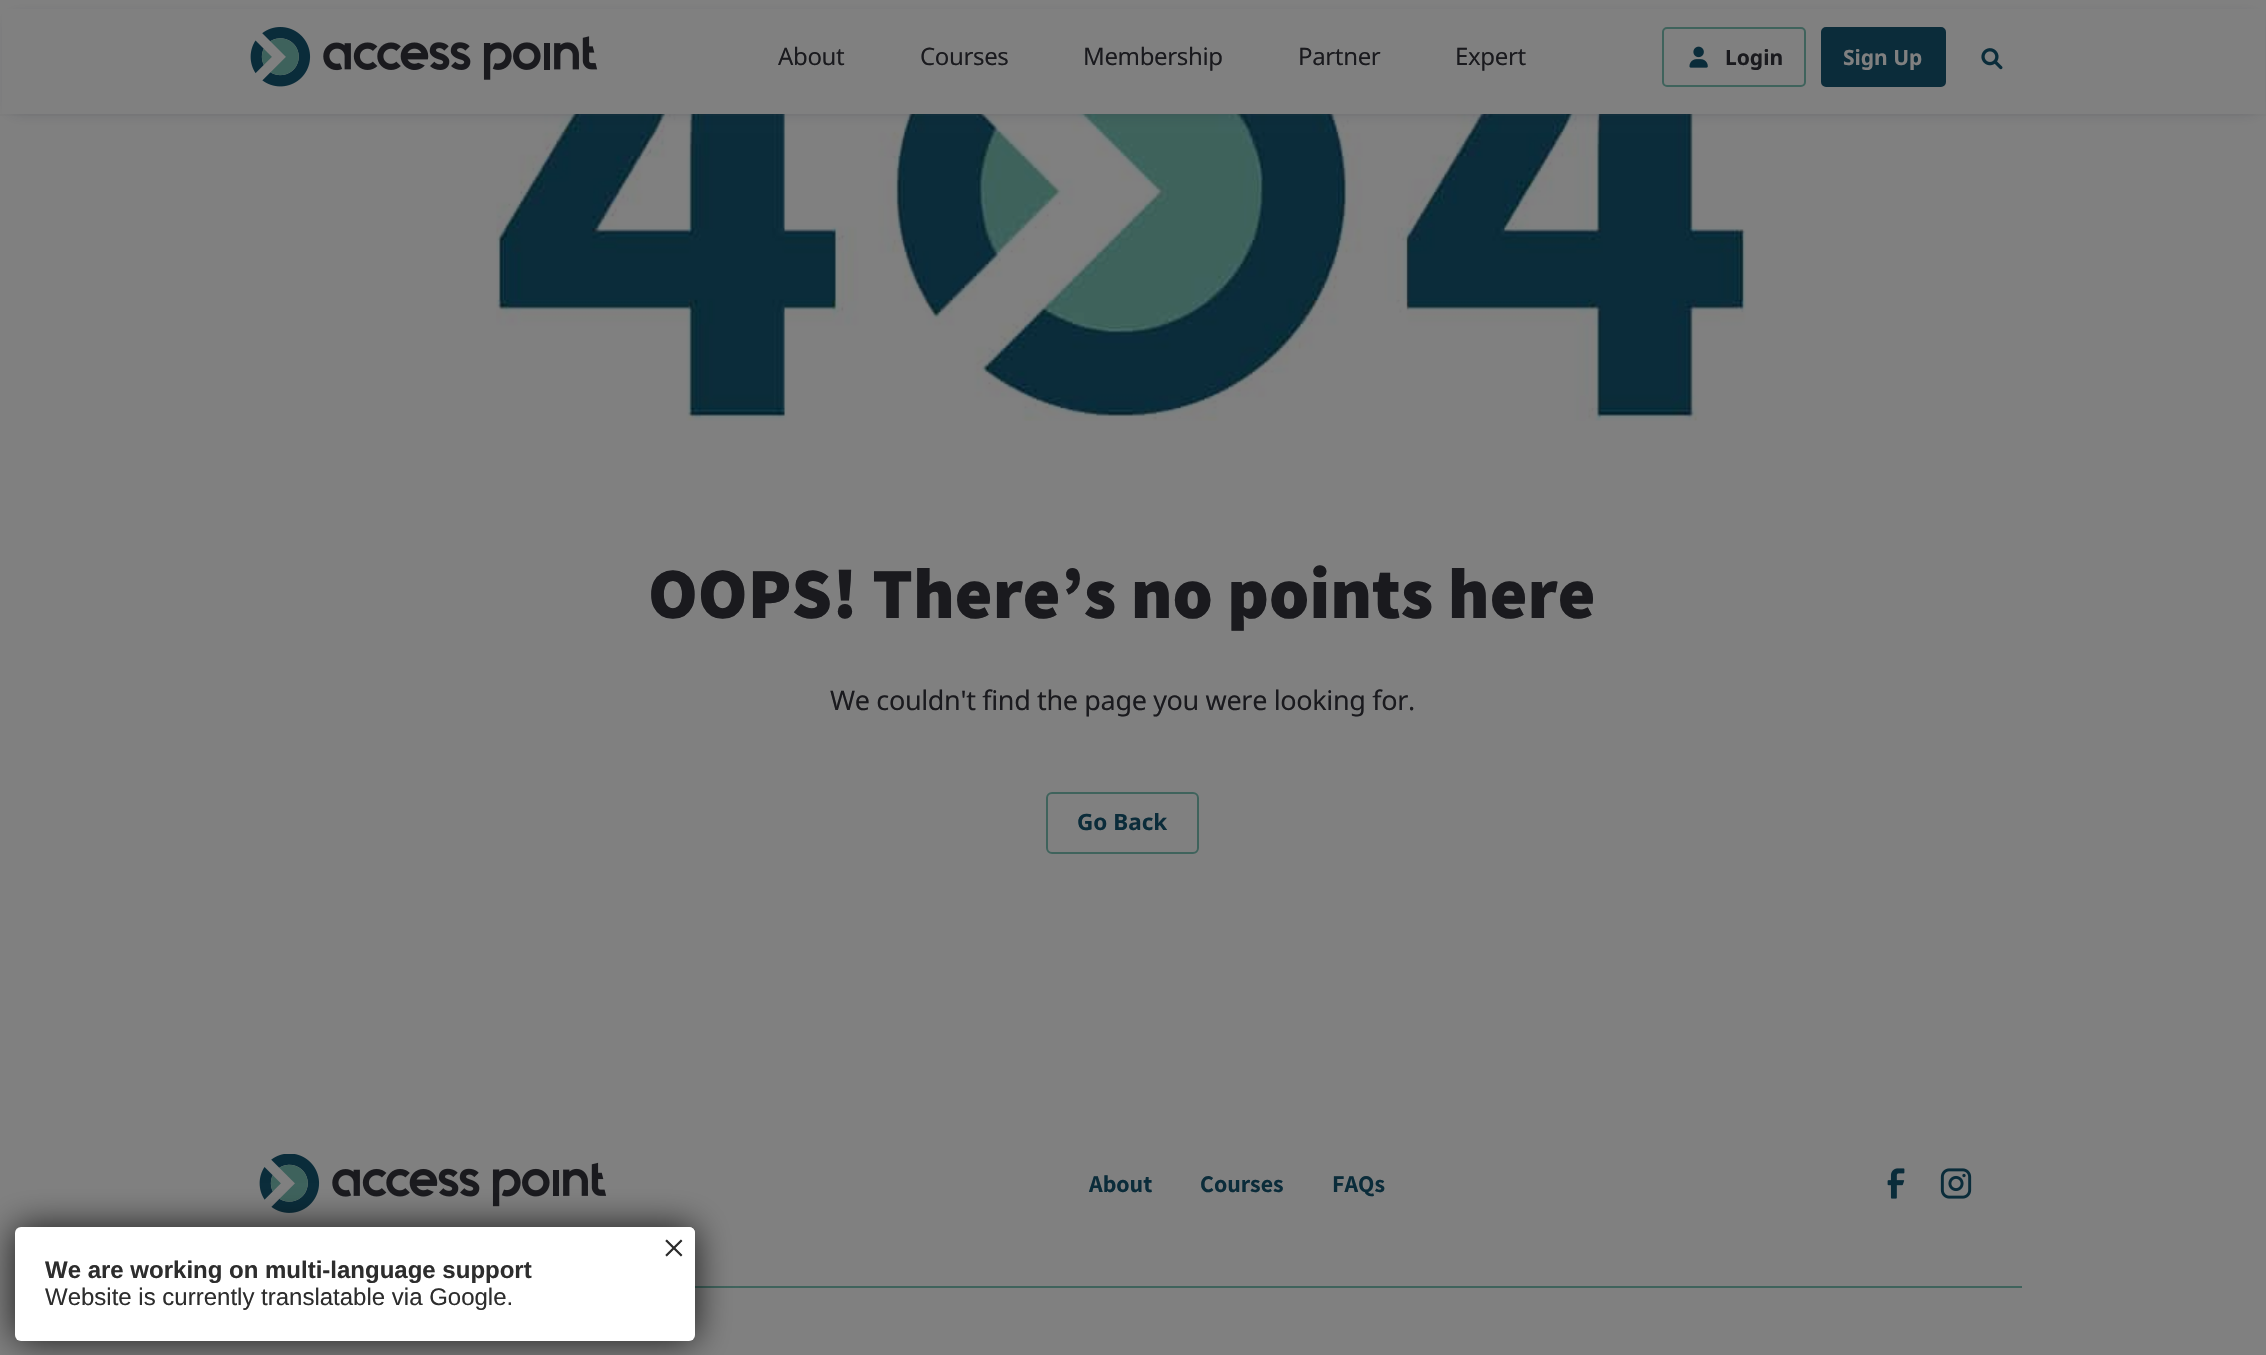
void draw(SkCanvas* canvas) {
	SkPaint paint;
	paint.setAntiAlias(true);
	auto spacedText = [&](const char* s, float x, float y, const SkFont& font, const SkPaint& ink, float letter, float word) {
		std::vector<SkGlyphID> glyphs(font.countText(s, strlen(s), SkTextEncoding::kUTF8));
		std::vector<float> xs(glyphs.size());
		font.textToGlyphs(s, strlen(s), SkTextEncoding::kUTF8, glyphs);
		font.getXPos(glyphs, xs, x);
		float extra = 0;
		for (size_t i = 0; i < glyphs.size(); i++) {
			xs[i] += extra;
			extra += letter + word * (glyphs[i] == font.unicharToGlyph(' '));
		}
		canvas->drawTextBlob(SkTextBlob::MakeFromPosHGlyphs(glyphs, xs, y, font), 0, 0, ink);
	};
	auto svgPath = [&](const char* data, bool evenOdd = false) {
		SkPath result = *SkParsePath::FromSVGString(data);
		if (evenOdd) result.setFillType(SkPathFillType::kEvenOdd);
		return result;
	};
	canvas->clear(0xff808080);
	canvas->drawImageRect(SkImages::DeferredFromEncodedData(SkData::MakeFromFileName("img4.png")), SkRect::MakeXYWH(496, 114, 1250, 307), SkSamplingOptions());
	paint.setColor(0x40212436);
	paint.setMaskFilter(SkMaskFilter::MakeBlur(kNormal_SkBlurStyle, 7.5));
	canvas->drawRect(SkRect::MakeXYWH(11, 18, 2245, 93), paint);
	paint.setMaskFilter(nullptr);
	paint.setColor(0x0d46474f);
	canvas->drawPath(svgPath("M0 114V116H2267V2H2266V114Z"), paint);
	paint.setColor(0xff808080);
	canvas->drawRect(SkRect::MakeXYWH(2, 9, 2263, 105), paint);
	canvas->drawImageRect(SkImages::DeferredFromEncodedData(SkData::MakeFromFileName("img1.png")), SkRect::MakeXYWH(250, 27, 348, 60), SkSamplingOptions());
	SkFont f1(fontMgr->matchFamilyStyle("Noto Sans", SkFontStyle::Normal()), 24);
	f1.setSubpixel(true);
	paint.setColor(0xff1a1a1e);
	spacedText("About", 778, 65, f1, paint, -0.35, 0);
	spacedText("Courses", 920, 65, f1, paint, -0.35, 0);
	spacedText("Membership", 1083, 65, f1, paint, -0.35, 0);
	spacedText("Partner", 1298, 65, f1, paint, -0.35, 0);
	spacedText("Expert", 1455, 65, f1, paint, -0.35, 0);
	paint.setStroke(true);
	paint.setStrokeWidth(2);
	paint.setColor(0xff3f635c);
	canvas->drawRoundRect(SkRect::MakeXYWH(1663, 28, 142, 58), 4, 4, paint);
	canvas->drawImageRect(SkImages::DeferredFromEncodedData(SkData::MakeFromFileName("img2.png")), SkRect::MakeXYWH(1689, 46, 19, 22), SkSamplingOptions());
	SkFont f2(fontMgr->matchFamilyStyle("Noto Sans", SkFontStyle::Bold()), 21);
	f2.setSubpixel(true);
	paint.setStroke(false);
	paint.setColor(0xff1a1a1e);
	canvas->drawString("Login", 1725, 65, f2, paint);
	paint.setColor(0xff0b2c3a);
	canvas->drawRoundRect(SkRect::MakeXYWH(1822, 28, 123, 58), 4, 4, paint);
	paint.setStroke(true);
	canvas->drawRoundRect(SkRect::MakeXYWH(1822, 28, 123, 58), 4, 4, paint);
	paint.setStroke(false);
	paint.setColor(0xff808080);
	canvas->drawString("Sign Up", 1843, 65, f2, paint);
	canvas->drawImageRect(SkImages::DeferredFromEncodedData(SkData::MakeFromFileName("img3.png")), SkRect::MakeXYWH(1981, 48, 22, 22), SkSamplingOptions());
	SkFont f3(fontMgr->matchFamilyStyle("Assistant", SkFontStyle(800, SkFontStyle::kNormal_Width, SkFontStyle::kUpright_Slant)), 72);
	f3.setSubpixel(true);
	paint.setColor(0xff1a1a1e);
	canvas->drawString("OOPS! There’s no points here", 648, 618, f3, paint);
	SkFont f4(fontMgr->matchFamilyStyle("Noto Sans", SkFontStyle::Normal()), 27);
	f4.setSubpixel(true);
	spacedText("We couldn't find the page you were looking for.", 830, 710, f4, paint, -0.35, 0);
	paint.setStroke(true);
	paint.setColor(0xff3f635c);
	canvas->drawRoundRect(SkRect::MakeXYWH(1047, 793, 151, 60), 5, 5, paint);
	SkFont f5(fontMgr->matchFamilyStyle("Noto Sans", SkFontStyle::Bold()), 22.5);
	f5.setSubpixel(true);
	paint.setStroke(false);
	paint.setColor(0xff0b2c3a);
	canvas->drawString("Go Back", 1077, 830, f5, paint);
	paint.setColor(0xff3f635c);
	canvas->drawRect(SkRect::MakeXYWH(695, 1286, 1327, 2), paint);
	canvas->drawImageRect(SkImages::DeferredFromEncodedData(SkData::MakeFromFileName("img5.png")), SkRect::MakeXYWH(259, 1154, 348, 59), SkSamplingOptions());
	SkFont f6(fontMgr->matchFamilyStyle("Assistant", SkFontStyle::Bold()), 24);
	f6.setSubpixel(true);
	paint.setColor(0xff0b2c3a);
	canvas->drawString("About", 1089, 1192, f6, paint);
	canvas->drawString("Courses", 1200, 1192, f6, paint);
	canvas->drawString("FAQs", 1332, 1192, f6, paint);
	canvas->drawImageRect(SkImages::DeferredFromEncodedData(SkData::MakeFromFileName("img6.png")), SkRect::MakeXYWH(1887, 1168, 18, 31), SkSamplingOptions());
	canvas->drawImageRect(SkImages::DeferredFromEncodedData(SkData::MakeFromFileName("img7.png")), SkRect::MakeXYWH(1940, 1168, 32, 31), SkSamplingOptions());
	paint.setColor(0xcc020202);
	paint.setMaskFilter(SkMaskFilter::MakeBlur(kNormal_SkBlurStyle, 18));
	canvas->drawRoundRect(SkRect::MakeXYWH(15, 1227, 680, 114), 6, 6, paint);
	paint.setMaskFilter(nullptr);
	paint.setColor(0xffffffff);
	canvas->drawRoundRect(SkRect::MakeXYWH(15, 1227, 680, 114), 6, 6, paint);
	canvas->drawRoundRect(SkRect::MakeXYWH(653, 1227, 42, 42), 6, 6, paint);
	SkFont f7(fontMgr->matchFamilyStyle("Liberation Serif", SkFontStyle::Normal()), 42);
	f7.setSubpixel(true);
	paint.setColor(0xff2d2d2d);
	canvas->drawString("×", 662, 1262, f7, paint);
	SkFont f8(fontMgr->matchFamilyStyle("Liberation Sans", SkFontStyle::Bold()), 24);
	f8.setSubpixel(true);
	canvas->drawString("We are working on multi-language support", 45, 1278, f8, paint);
	SkFont f9(fontMgr->matchFamilyStyle("Liberation Sans", SkFontStyle::Normal()), 24);
	f9.setSubpixel(true);
	canvas->drawString("Website is currently translatable via Google.", 45, 1305, f9, paint);
}
